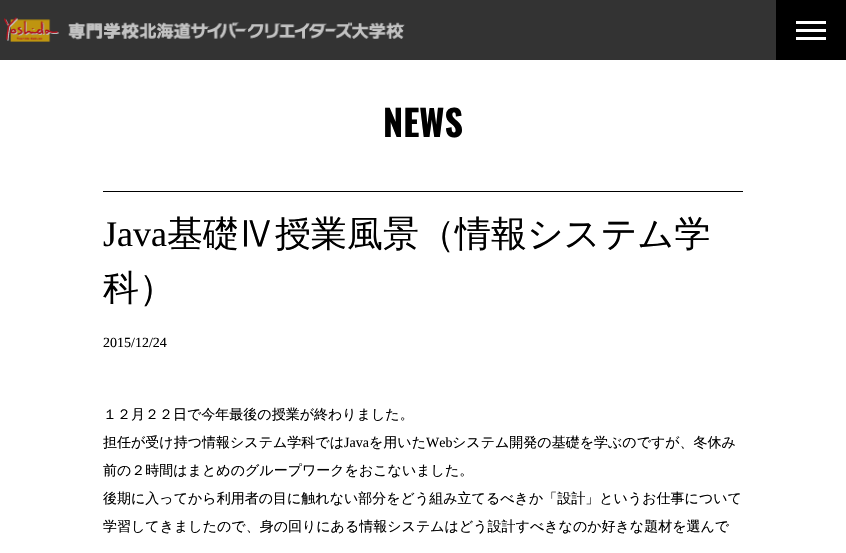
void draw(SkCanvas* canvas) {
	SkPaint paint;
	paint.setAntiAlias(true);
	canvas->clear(0xffffffff);
	paint.setColor(0xff333333);
	canvas->drawRect(SkRect::MakeXYWH(0, 0, 776, 60), paint);
	canvas->drawImageRect(SkImages::DeferredFromEncodedData(SkData::MakeFromFileName("img1.png")), SkRect::MakeXYWH(4, 17, 401, 25), SkSamplingOptions());
	paint.setColor(0xff000000);
	canvas->drawRect(SkRect::MakeXYWH(776, 0, 70, 60), paint);
	paint.setColor(0xffffffff);
	canvas->drawRect(SkRect::MakeXYWH(796, 21, 30, 3), paint);
	canvas->drawRect(SkRect::MakeXYWH(796, 29, 30, 3), paint);
	canvas->drawRect(SkRect::MakeXYWH(796, 37, 30, 3), paint);
	SkFont f1(fontMgr->matchFamilyStyle("Oswald", SkFontStyle::Bold()), 36);
	f1.setSubpixel(true);
	paint.setColor(0xff000000);
	canvas->drawString("NEWS", 383, 137, f1, paint);
	canvas->drawRect(SkRect::MakeXYWH(103, 191, 640, 1), paint);
	SkFont f2(fontMgr->matchFamilyStyle("Liberation Serif", SkFontStyle::Normal()), 36);
	f2.setSubpixel(true);
	canvas->drawString("Java", 103, 246, f2, paint);
	SkFont f3(fontMgr->matchFamilyStyle("WenQuanYi Zen Hei", SkFontStyle(500, SkFontStyle::kNormal_Width, SkFontStyle::kUpright_Slant)), 36);
	f3.setSubpixel(true);
	canvas->drawString("基礎Ⅳ授業風景（情報システム学", 167, 246, f3, paint);
	canvas->drawString("科）", 103, 300, f3, paint);
	SkFont f4(fontMgr->matchFamilyStyle("Liberation Serif", SkFontStyle::Normal()), 14);
	f4.setSubpixel(true);
	canvas->drawString("2015/12/24", 103, 347, f4, paint);
	SkFont f5(fontMgr->matchFamilyStyle("WenQuanYi Zen Hei", SkFontStyle(500, SkFontStyle::kNormal_Width, SkFontStyle::kUpright_Slant)), 14);
	f5.setSubpixel(true);
	canvas->drawString("１２月２２日で今年最後の授業が終わりました。", 103, 419, f5, paint);
	canvas->drawString("担任が受け持つ情報システム学科では", 103, 447, f5, paint);
	canvas->drawString("Java", 344, 447, f4, paint);
	canvas->drawString("を用いた", 369, 447, f5, paint);
	canvas->drawString("Web", 426, 447, f4, paint);
	canvas->drawString("システム開発の基礎を学ぶのですが、冬休み", 452, 447, f5, paint);
	canvas->drawString("前の２時間はまとめのグループワークをおこないました。", 103, 475, f5, paint);
	canvas->drawString("後期に入ってから利用者の目に触れない部分をどう組み立てるべきか「設計」というお仕事について", 103, 503, f5, paint);
	canvas->drawString("学習してきましたので、身の回りにある情報システムはどう設計すべきなのか好きな題材を選んで", 103, 531, f5, paint);
}
